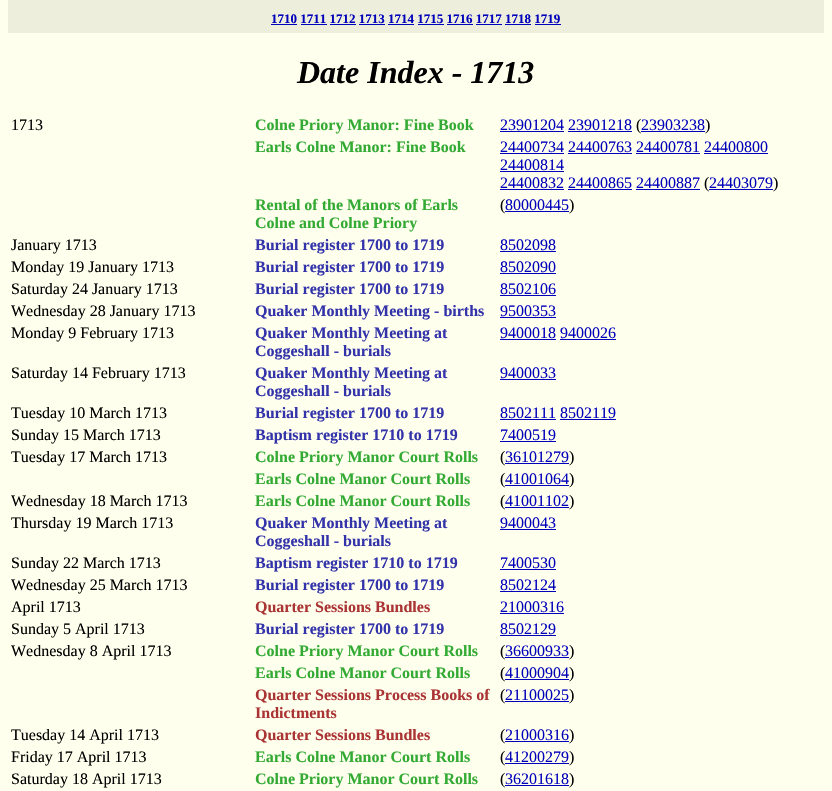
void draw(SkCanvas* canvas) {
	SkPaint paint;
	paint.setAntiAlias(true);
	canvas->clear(0xffffffee);
	paint.setColor(0xffeeeedd);
	canvas->drawRect(SkRect::MakeXYWH(8, 0, 816, 33), paint);
	SkFont f1(fontMgr->matchFamilyStyle("Liberation Serif", SkFontStyle::Bold()), 13);
	f1.setSubpixel(true);
	paint.setColor(0xff0000bb);
	canvas->drawString("1710 1711 1712 1713 1714 1715 1716 1717 1718 1719", 271, 23, f1, paint);
	canvas->drawRect(SkRect::MakeXYWH(271, 24, 26, 1), paint);
	canvas->drawRect(SkRect::MakeXYWH(301, 24, 26, 1), paint);
	canvas->drawRect(SkRect::MakeXYWH(330, 24, 26, 1), paint);
	canvas->drawRect(SkRect::MakeXYWH(359, 24, 26, 1), paint);
	canvas->drawRect(SkRect::MakeXYWH(388, 24, 26, 1), paint);
	canvas->drawRect(SkRect::MakeXYWH(418, 24, 26, 1), paint);
	canvas->drawRect(SkRect::MakeXYWH(447, 24, 26, 1), paint);
	canvas->drawRect(SkRect::MakeXYWH(476, 24, 26, 1), paint);
	canvas->drawRect(SkRect::MakeXYWH(505, 24, 26, 1), paint);
	canvas->drawRect(SkRect::MakeXYWH(535, 24, 26, 1), paint);
	SkFont f2(fontMgr->matchFamilyStyle("Liberation Serif", SkFontStyle::BoldItalic()), 32);
	f2.setSubpixel(true);
	paint.setColor(0xff000000);
	canvas->drawString("Date Index - 1713", 297, 83, f2, paint);
	SkFont f3(fontMgr->matchFamilyStyle("Liberation Serif", SkFontStyle::Normal()), 16);
	f3.setSubpixel(true);
	canvas->drawString("1713", 11, 130, f3, paint);
	SkFont f4(fontMgr->matchFamilyStyle("Liberation Serif", SkFontStyle::Bold()), 16);
	f4.setSubpixel(true);
	paint.setColor(0xff33aa33);
	canvas->drawString("Colne Priory Manor: Fine Book", 255, 130, f4, paint);
	paint.setColor(0xff0000bb);
	canvas->drawString("23901204 23901218", 500, 130, f3, paint);
	canvas->drawRect(SkRect::MakeXYWH(500, 131, 64, 1), paint);
	paint.setColor(0xff000000);
	canvas->drawString("(", 636, 130, f3, paint);
	paint.setColor(0xff0000bb);
	canvas->drawString("23903238", 641, 130, f3, paint);
	canvas->drawRect(SkRect::MakeXYWH(641, 131, 64, 1), paint);
	paint.setColor(0xff000000);
	canvas->drawString(")", 705, 130, f3, paint);
	paint.setColor(0xff0000bb);
	canvas->drawRect(SkRect::MakeXYWH(568, 131, 64, 1), paint);
	paint.setColor(0xff33aa33);
	canvas->drawString("Earls Colne Manor: Fine Book", 255, 152, f4, paint);
	paint.setColor(0xff0000bb);
	canvas->drawString("24400734 24400763 24400781 24400800", 500, 152, f3, paint);
	canvas->drawRect(SkRect::MakeXYWH(500, 153, 64, 1), paint);
	canvas->drawRect(SkRect::MakeXYWH(568, 153, 64, 1), paint);
	canvas->drawRect(SkRect::MakeXYWH(636, 153, 64, 1), paint);
	canvas->drawRect(SkRect::MakeXYWH(704, 153, 64, 1), paint);
	canvas->drawString("24400814", 500, 170, f3, paint);
	canvas->drawRect(SkRect::MakeXYWH(500, 171, 64, 1), paint);
	canvas->drawString("24400832 24400865 24400887", 500, 188, f3, paint);
	canvas->drawRect(SkRect::MakeXYWH(500, 189, 64, 1), paint);
	paint.setColor(0xff000000);
	canvas->drawString("(", 704, 188, f3, paint);
	paint.setColor(0xff0000bb);
	canvas->drawString("24403079", 709, 188, f3, paint);
	canvas->drawRect(SkRect::MakeXYWH(709, 189, 64, 1), paint);
	paint.setColor(0xff000000);
	canvas->drawString(")", 773, 188, f3, paint);
	paint.setColor(0xff0000bb);
	canvas->drawRect(SkRect::MakeXYWH(568, 189, 64, 1), paint);
	canvas->drawRect(SkRect::MakeXYWH(636, 189, 64, 1), paint);
	paint.setColor(0xff33aa33);
	canvas->drawString("Rental of the Manors of Earls", 255, 210, f4, paint);
	canvas->drawString("Colne and Colne Priory", 255, 228, f4, paint);
	paint.setColor(0xff000000);
	canvas->drawString("(", 500, 210, f3, paint);
	paint.setColor(0xff0000bb);
	canvas->drawString("80000445", 505, 210, f3, paint);
	canvas->drawRect(SkRect::MakeXYWH(505, 211, 64, 1), paint);
	paint.setColor(0xff000000);
	canvas->drawString(")", 569, 210, f3, paint);
	canvas->drawString("January 1713", 11, 250, f3, paint);
	paint.setColor(0xff3333aa);
	canvas->drawString("Burial register 1700 to 1719", 255, 250, f4, paint);
	paint.setColor(0xff0000bb);
	canvas->drawString("8502098", 500, 250, f3, paint);
	canvas->drawRect(SkRect::MakeXYWH(500, 251, 56, 1), paint);
	paint.setColor(0xff000000);
	canvas->drawString("Monday 19 January 1713", 11, 272, f3, paint);
	paint.setColor(0xff3333aa);
	canvas->drawString("Burial register 1700 to 1719", 255, 272, f4, paint);
	paint.setColor(0xff0000bb);
	canvas->drawString("8502090", 500, 272, f3, paint);
	canvas->drawRect(SkRect::MakeXYWH(500, 273, 56, 1), paint);
	paint.setColor(0xff000000);
	canvas->drawString("Saturday 24 January 1713", 11, 294, f3, paint);
	paint.setColor(0xff3333aa);
	canvas->drawString("Burial register 1700 to 1719", 255, 294, f4, paint);
	paint.setColor(0xff0000bb);
	canvas->drawString("8502106", 500, 294, f3, paint);
	canvas->drawRect(SkRect::MakeXYWH(500, 295, 56, 1), paint);
	paint.setColor(0xff000000);
	canvas->drawString("Wednesday 28 January 1713", 11, 316, f3, paint);
	paint.setColor(0xff3333aa);
	canvas->drawString("Quaker Monthly Meeting - births", 255, 316, f4, paint);
	paint.setColor(0xff0000bb);
	canvas->drawString("9500353", 500, 316, f3, paint);
	canvas->drawRect(SkRect::MakeXYWH(500, 317, 56, 1), paint);
	paint.setColor(0xff000000);
	canvas->drawString("Monday 9 February 1713", 11, 338, f3, paint);
	paint.setColor(0xff3333aa);
	canvas->drawString("Quaker Monthly Meeting at", 255, 338, f4, paint);
	canvas->drawString("Coggeshall - burials", 255, 356, f4, paint);
	paint.setColor(0xff0000bb);
	canvas->drawString("9400018 9400026", 500, 338, f3, paint);
	canvas->drawRect(SkRect::MakeXYWH(500, 339, 56, 1), paint);
	canvas->drawRect(SkRect::MakeXYWH(560, 339, 56, 1), paint);
	paint.setColor(0xff000000);
	canvas->drawString("Saturday 14 February 1713", 11, 378, f3, paint);
	paint.setColor(0xff3333aa);
	canvas->drawString("Quaker Monthly Meeting at", 255, 378, f4, paint);
	canvas->drawString("Coggeshall - burials", 255, 396, f4, paint);
	paint.setColor(0xff0000bb);
	canvas->drawString("9400033", 500, 378, f3, paint);
	canvas->drawRect(SkRect::MakeXYWH(500, 379, 56, 1), paint);
	paint.setColor(0xff000000);
	canvas->drawString("Tuesday 10 March 1713", 11, 418, f3, paint);
	paint.setColor(0xff3333aa);
	canvas->drawString("Burial register 1700 to 1719", 255, 418, f4, paint);
	paint.setColor(0xff0000bb);
	canvas->drawString("8502111 8502119", 500, 418, f3, paint);
	canvas->drawRect(SkRect::MakeXYWH(500, 419, 56, 1), paint);
	canvas->drawRect(SkRect::MakeXYWH(560, 419, 56, 1), paint);
	paint.setColor(0xff000000);
	canvas->drawString("Sunday 15 March 1713", 11, 440, f3, paint);
	paint.setColor(0xff3333aa);
	canvas->drawString("Baptism register 1710 to 1719", 255, 440, f4, paint);
	paint.setColor(0xff0000bb);
	canvas->drawString("7400519", 500, 440, f3, paint);
	canvas->drawRect(SkRect::MakeXYWH(500, 441, 56, 1), paint);
	paint.setColor(0xff000000);
	canvas->drawString("Tuesday 17 March 1713", 11, 462, f3, paint);
	paint.setColor(0xff33aa33);
	canvas->drawString("Colne Priory Manor Court Rolls", 255, 462, f4, paint);
	paint.setColor(0xff000000);
	canvas->drawString("(", 500, 462, f3, paint);
	paint.setColor(0xff0000bb);
	canvas->drawString("36101279", 505, 462, f3, paint);
	canvas->drawRect(SkRect::MakeXYWH(505, 463, 64, 1), paint);
	paint.setColor(0xff000000);
	canvas->drawString(")", 569, 462, f3, paint);
	paint.setColor(0xff33aa33);
	canvas->drawString("Earls Colne Manor Court Rolls", 255, 484, f4, paint);
	paint.setColor(0xff000000);
	canvas->drawString("(", 500, 484, f3, paint);
	paint.setColor(0xff0000bb);
	canvas->drawString("41001064", 505, 484, f3, paint);
	canvas->drawRect(SkRect::MakeXYWH(505, 485, 64, 1), paint);
	paint.setColor(0xff000000);
	canvas->drawString(")", 569, 484, f3, paint);
	canvas->drawString("Wednesday 18 March 1713", 11, 506, f3, paint);
	paint.setColor(0xff33aa33);
	canvas->drawString("Earls Colne Manor Court Rolls", 255, 506, f4, paint);
	paint.setColor(0xff000000);
	canvas->drawString("(", 500, 506, f3, paint);
	paint.setColor(0xff0000bb);
	canvas->drawString("41001102", 505, 506, f3, paint);
	canvas->drawRect(SkRect::MakeXYWH(505, 507, 64, 1), paint);
	paint.setColor(0xff000000);
	canvas->drawString(")", 569, 506, f3, paint);
	canvas->drawString("Thursday 19 March 1713", 11, 528, f3, paint);
	paint.setColor(0xff3333aa);
	canvas->drawString("Quaker Monthly Meeting at", 255, 528, f4, paint);
	canvas->drawString("Coggeshall - burials", 255, 546, f4, paint);
	paint.setColor(0xff0000bb);
	canvas->drawString("9400043", 500, 528, f3, paint);
	canvas->drawRect(SkRect::MakeXYWH(500, 529, 56, 1), paint);
	paint.setColor(0xff000000);
	canvas->drawString("Sunday 22 March 1713", 11, 568, f3, paint);
	paint.setColor(0xff3333aa);
	canvas->drawString("Baptism register 1710 to 1719", 255, 568, f4, paint);
	paint.setColor(0xff0000bb);
	canvas->drawString("7400530", 500, 568, f3, paint);
	canvas->drawRect(SkRect::MakeXYWH(500, 569, 56, 1), paint);
	paint.setColor(0xff000000);
	canvas->drawString("Wednesday 25 March 1713", 11, 590, f3, paint);
	paint.setColor(0xff3333aa);
	canvas->drawString("Burial register 1700 to 1719", 255, 590, f4, paint);
	paint.setColor(0xff0000bb);
	canvas->drawString("8502124", 500, 590, f3, paint);
	canvas->drawRect(SkRect::MakeXYWH(500, 591, 56, 1), paint);
	paint.setColor(0xff000000);
	canvas->drawString("April 1713", 11, 612, f3, paint);
	paint.setColor(0xffaa3333);
	canvas->drawString("Quarter Sessions Bundles", 255, 612, f4, paint);
	paint.setColor(0xff0000bb);
	canvas->drawString("21000316", 500, 612, f3, paint);
	canvas->drawRect(SkRect::MakeXYWH(500, 613, 64, 1), paint);
	paint.setColor(0xff000000);
	canvas->drawString("Sunday 5 April 1713", 11, 634, f3, paint);
	paint.setColor(0xff3333aa);
	canvas->drawString("Burial register 1700 to 1719", 255, 634, f4, paint);
	paint.setColor(0xff0000bb);
	canvas->drawString("8502129", 500, 634, f3, paint);
	canvas->drawRect(SkRect::MakeXYWH(500, 635, 56, 1), paint);
	paint.setColor(0xff000000);
	canvas->drawString("Wednesday 8 April 1713", 11, 656, f3, paint);
	paint.setColor(0xff33aa33);
	canvas->drawString("Colne Priory Manor Court Rolls", 255, 656, f4, paint);
	paint.setColor(0xff000000);
	canvas->drawString("(", 500, 656, f3, paint);
	paint.setColor(0xff0000bb);
	canvas->drawString("36600933", 505, 656, f3, paint);
	canvas->drawRect(SkRect::MakeXYWH(505, 657, 64, 1), paint);
	paint.setColor(0xff000000);
	canvas->drawString(")", 569, 656, f3, paint);
	paint.setColor(0xff33aa33);
	canvas->drawString("Earls Colne Manor Court Rolls", 255, 678, f4, paint);
	paint.setColor(0xff000000);
	canvas->drawString("(", 500, 678, f3, paint);
	paint.setColor(0xff0000bb);
	canvas->drawString("41000904", 505, 678, f3, paint);
	canvas->drawRect(SkRect::MakeXYWH(505, 679, 64, 1), paint);
	paint.setColor(0xff000000);
	canvas->drawString(")", 569, 678, f3, paint);
	paint.setColor(0xffaa3333);
	canvas->drawString("Quarter Sessions Process Books of", 255, 700, f4, paint);
	canvas->drawString("Indictments", 255, 718, f4, paint);
	paint.setColor(0xff000000);
	canvas->drawString("(", 500, 700, f3, paint);
	paint.setColor(0xff0000bb);
	canvas->drawString("21100025", 505, 700, f3, paint);
	canvas->drawRect(SkRect::MakeXYWH(505, 701, 64, 1), paint);
	paint.setColor(0xff000000);
	canvas->drawString(")", 569, 700, f3, paint);
	canvas->drawString("Tuesday 14 April 1713", 11, 740, f3, paint);
	paint.setColor(0xffaa3333);
	canvas->drawString("Quarter Sessions Bundles", 255, 740, f4, paint);
	paint.setColor(0xff000000);
	canvas->drawString("(", 500, 740, f3, paint);
	paint.setColor(0xff0000bb);
	canvas->drawString("21000316", 505, 740, f3, paint);
	canvas->drawRect(SkRect::MakeXYWH(505, 741, 64, 1), paint);
	paint.setColor(0xff000000);
	canvas->drawString(")", 569, 740, f3, paint);
	canvas->drawString("Friday 17 April 1713", 11, 762, f3, paint);
	paint.setColor(0xff33aa33);
	canvas->drawString("Earls Colne Manor Court Rolls", 255, 762, f4, paint);
	paint.setColor(0xff000000);
	canvas->drawString("(", 500, 762, f3, paint);
	paint.setColor(0xff0000bb);
	canvas->drawString("41200279", 505, 762, f3, paint);
	canvas->drawRect(SkRect::MakeXYWH(505, 763, 64, 1), paint);
	paint.setColor(0xff000000);
	canvas->drawString(")", 569, 762, f3, paint);
	canvas->drawString("Saturday 18 April 1713", 11, 784, f3, paint);
	paint.setColor(0xff33aa33);
	canvas->drawString("Colne Priory Manor Court Rolls", 255, 784, f4, paint);
	paint.setColor(0xff000000);
	canvas->drawString("(", 500, 784, f3, paint);
	paint.setColor(0xff0000bb);
	canvas->drawString("36201618", 505, 784, f3, paint);
	canvas->drawRect(SkRect::MakeXYWH(505, 785, 64, 1), paint);
	paint.setColor(0xff000000);
	canvas->drawString(")", 569, 784, f3, paint);
}
